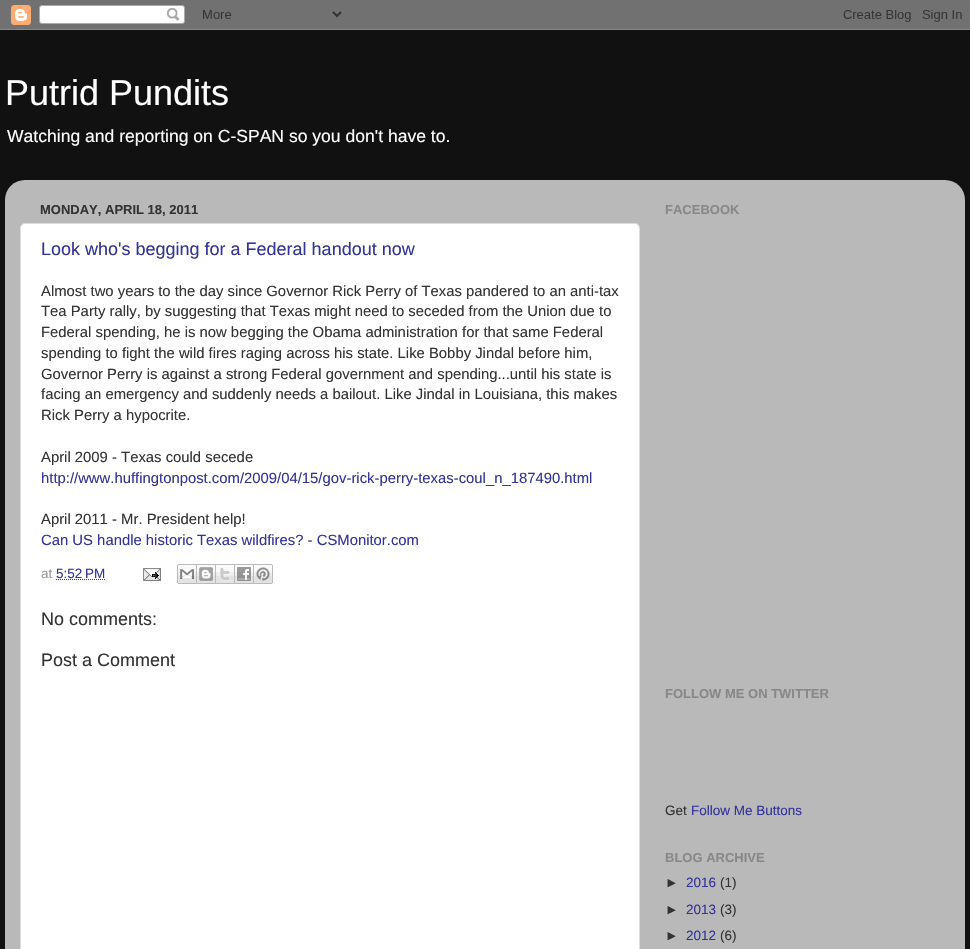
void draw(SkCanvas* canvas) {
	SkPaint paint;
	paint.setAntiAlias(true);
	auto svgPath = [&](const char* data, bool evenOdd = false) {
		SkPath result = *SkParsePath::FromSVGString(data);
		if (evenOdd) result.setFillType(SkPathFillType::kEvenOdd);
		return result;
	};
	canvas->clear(0xff111111);
	canvas->drawImageRect(SkImages::DeferredFromEncodedData(SkData::MakeFromFileName("img1.png")), SkRect::MakeXYWH(0, 0, 970, 30), SkSamplingOptions());
	SkFont f1(fontMgr->matchFamilyStyle("Liberation Sans", SkFontStyle::Normal()), 36);
	f1.setSubpixel(true);
	paint.setColor(0xffffffff);
	canvas->drawString("Putrid Pundits", 5, 105, f1, paint);
	SkFont f2(fontMgr->matchFamilyStyle("Liberation Sans", SkFontStyle::Normal()), 17.55);
	f2.setSubpixel(true);
	canvas->drawString("Watching and reporting on C-SPAN so you don't have to.", 7, 142, f2, paint);
	canvas->drawImageRect(SkImages::DeferredFromEncodedData(SkData::MakeFromFileName("img2.png")), SkRect::MakeXYWH(5, 180, 960, 769), SkSamplingOptions());
	SkFont f3(fontMgr->matchFamilyStyle("Liberation Sans", SkFontStyle::Bold()), 13);
	f3.setSubpixel(true);
	paint.setColor(0xff333333);
	canvas->drawString("MONDAY, APRIL 18, 2011", 40, 214, f3, paint);
	paint.setColor(0xffffffff);
	canvas->drawRoundRect(SkRect::MakeXYWH(20.5, 223.5, 619, 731), 4.5, 4.5, paint);
	paint.setStroke(true);
	paint.setStrokeWidth(1);
	paint.setColor(0xffdddddd);
	canvas->drawRoundRect(SkRect::MakeXYWH(20.5, 223.5, 619, 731), 4.5, 4.5, paint);
	SkFont f4(fontMgr->matchFamilyStyle("Liberation Sans", SkFontStyle::Normal()), 18);
	f4.setSubpixel(true);
	paint.setStroke(false);
	paint.setColor(0xff333399);
	canvas->drawString("Look who's begging for a Federal handout now", 41, 255, f4, paint);
	SkFont f5(fontMgr->matchFamilyStyle("Liberation Sans", SkFontStyle::Normal()), 14.85);
	f5.setSubpixel(true);
	paint.setColor(0xff333333);
	canvas->drawString("Almost two years to the day since Governor Rick Perry of Texas pandered to an anti-tax", 41, 296, f5, paint);
	canvas->drawString("Tea Party rally, by suggesting that Texas might need to seceded from the Union due to", 41, 316, f5, paint);
	canvas->drawString("Federal spending, he is now begging the Obama administration for that same Federal", 41, 337, f5, paint);
	canvas->drawString("spending to fight the wild fires raging across his state. Like Bobby Jindal before him,", 41, 358, f5, paint);
	canvas->drawString("Governor Perry is against a strong Federal government and spending...until his state is", 41, 379, f5, paint);
	canvas->drawString("facing an emergency and suddenly needs a bailout. Like Jindal in Louisiana, this makes", 41, 399, f5, paint);
	canvas->drawString("Rick Perry a hypocrite.", 41, 420, f5, paint);
	canvas->drawString("April 2009 - Texas could secede", 41, 462, f5, paint);
	paint.setColor(0xff333399);
	canvas->drawString("http://www.huffingtonpost.com/2009/04/15/gov-rick-perry-texas-coul_n_187490.html", 41, 483, f5, paint);
	paint.setColor(0xff333333);
	canvas->drawString("April 2011 - Mr. President help!", 41, 524, f5, paint);
	paint.setColor(0xff333399);
	canvas->drawString("Can US handle historic Texas wildfires? - CSMonitor.com", 41, 545, f5, paint);
	SkFont f6(fontMgr->matchFamilyStyle("Liberation Sans", SkFontStyle::Normal()), 13.5);
	f6.setSubpixel(true);
	paint.setColor(0xff999999);
	canvas->drawString("at", 41, 578, f6, paint);
	paint.setColor(0xff333399);
	canvas->drawString("5:52 PM", 56, 578, f6, paint);
	paint.setStroke(true);
	paint.setPathEffect(SkDashPathEffect::Make({{1, 1}}, 0));
	canvas->drawPath(svgPath("M56 579.5H105"), paint);
	paint.setPathEffect(nullptr);
	canvas->drawImageRect(SkImages::DeferredFromEncodedData(SkData::MakeFromFileName("img3.png")), SkRect::MakeXYWH(143, 568, 18, 13), SkSamplingOptions());
	canvas->drawImageRect(SkImages::DeferredFromEncodedData(SkData::MakeFromFileName("img4.png")), SkRect::MakeXYWH(177, 564, 20, 20), SkSamplingOptions());
	canvas->drawImageRect(SkImages::DeferredFromEncodedData(SkData::MakeFromFileName("img5.png")), SkRect::MakeXYWH(197, 564, 19, 20), SkSamplingOptions());
	canvas->drawImageRect(SkImages::DeferredFromEncodedData(SkData::MakeFromFileName("img6.png")), SkRect::MakeXYWH(216, 564, 19, 20), SkSamplingOptions());
	canvas->drawImageRect(SkImages::DeferredFromEncodedData(SkData::MakeFromFileName("img7.png")), SkRect::MakeXYWH(235, 564, 19, 20), SkSamplingOptions());
	canvas->drawImageRect(SkImages::DeferredFromEncodedData(SkData::MakeFromFileName("img8.png")), SkRect::MakeXYWH(254, 564, 19, 20), SkSamplingOptions());
	paint.setStroke(false);
	paint.setColor(0xff333333);
	canvas->drawString("No comments:", 41, 625, f4, paint);
	canvas->drawString("Post a Comment", 41, 666, f4, paint);
	paint.setColor(0xff888888);
	canvas->drawString("FACEBOOK", 665, 214, f3, paint);
	canvas->drawString("FOLLOW ME ON TWITTER", 665, 698, f3, paint);
	paint.setColor(0xff333333);
	canvas->drawString("Get", 665, 815, f6, paint);
	paint.setColor(0xff333399);
	canvas->drawString("Follow Me Buttons", 691, 815, f6, paint);
	paint.setColor(0xff888888);
	canvas->drawString("BLOG ARCHIVE", 665, 862, f3, paint);
	paint.setColor(0xff333333);
	canvas->drawString("►", 665, 887, f6, paint);
	paint.setColor(0xff333399);
	canvas->drawString("2016", 686, 887, f6, paint);
	paint.setColor(0xff333333);
	canvas->drawString("(1)", 720, 887, f6, paint);
	canvas->drawString("►", 665, 914, f6, paint);
	paint.setColor(0xff333399);
	canvas->drawString("2013", 686, 914, f6, paint);
	paint.setColor(0xff333333);
	canvas->drawString("(3)", 720, 914, f6, paint);
	canvas->drawString("►", 665, 940, f6, paint);
	paint.setColor(0xff333399);
	canvas->drawString("2012", 686, 940, f6, paint);
	paint.setColor(0xff333333);
	canvas->drawString("(6)", 720, 940, f6, paint);
}
